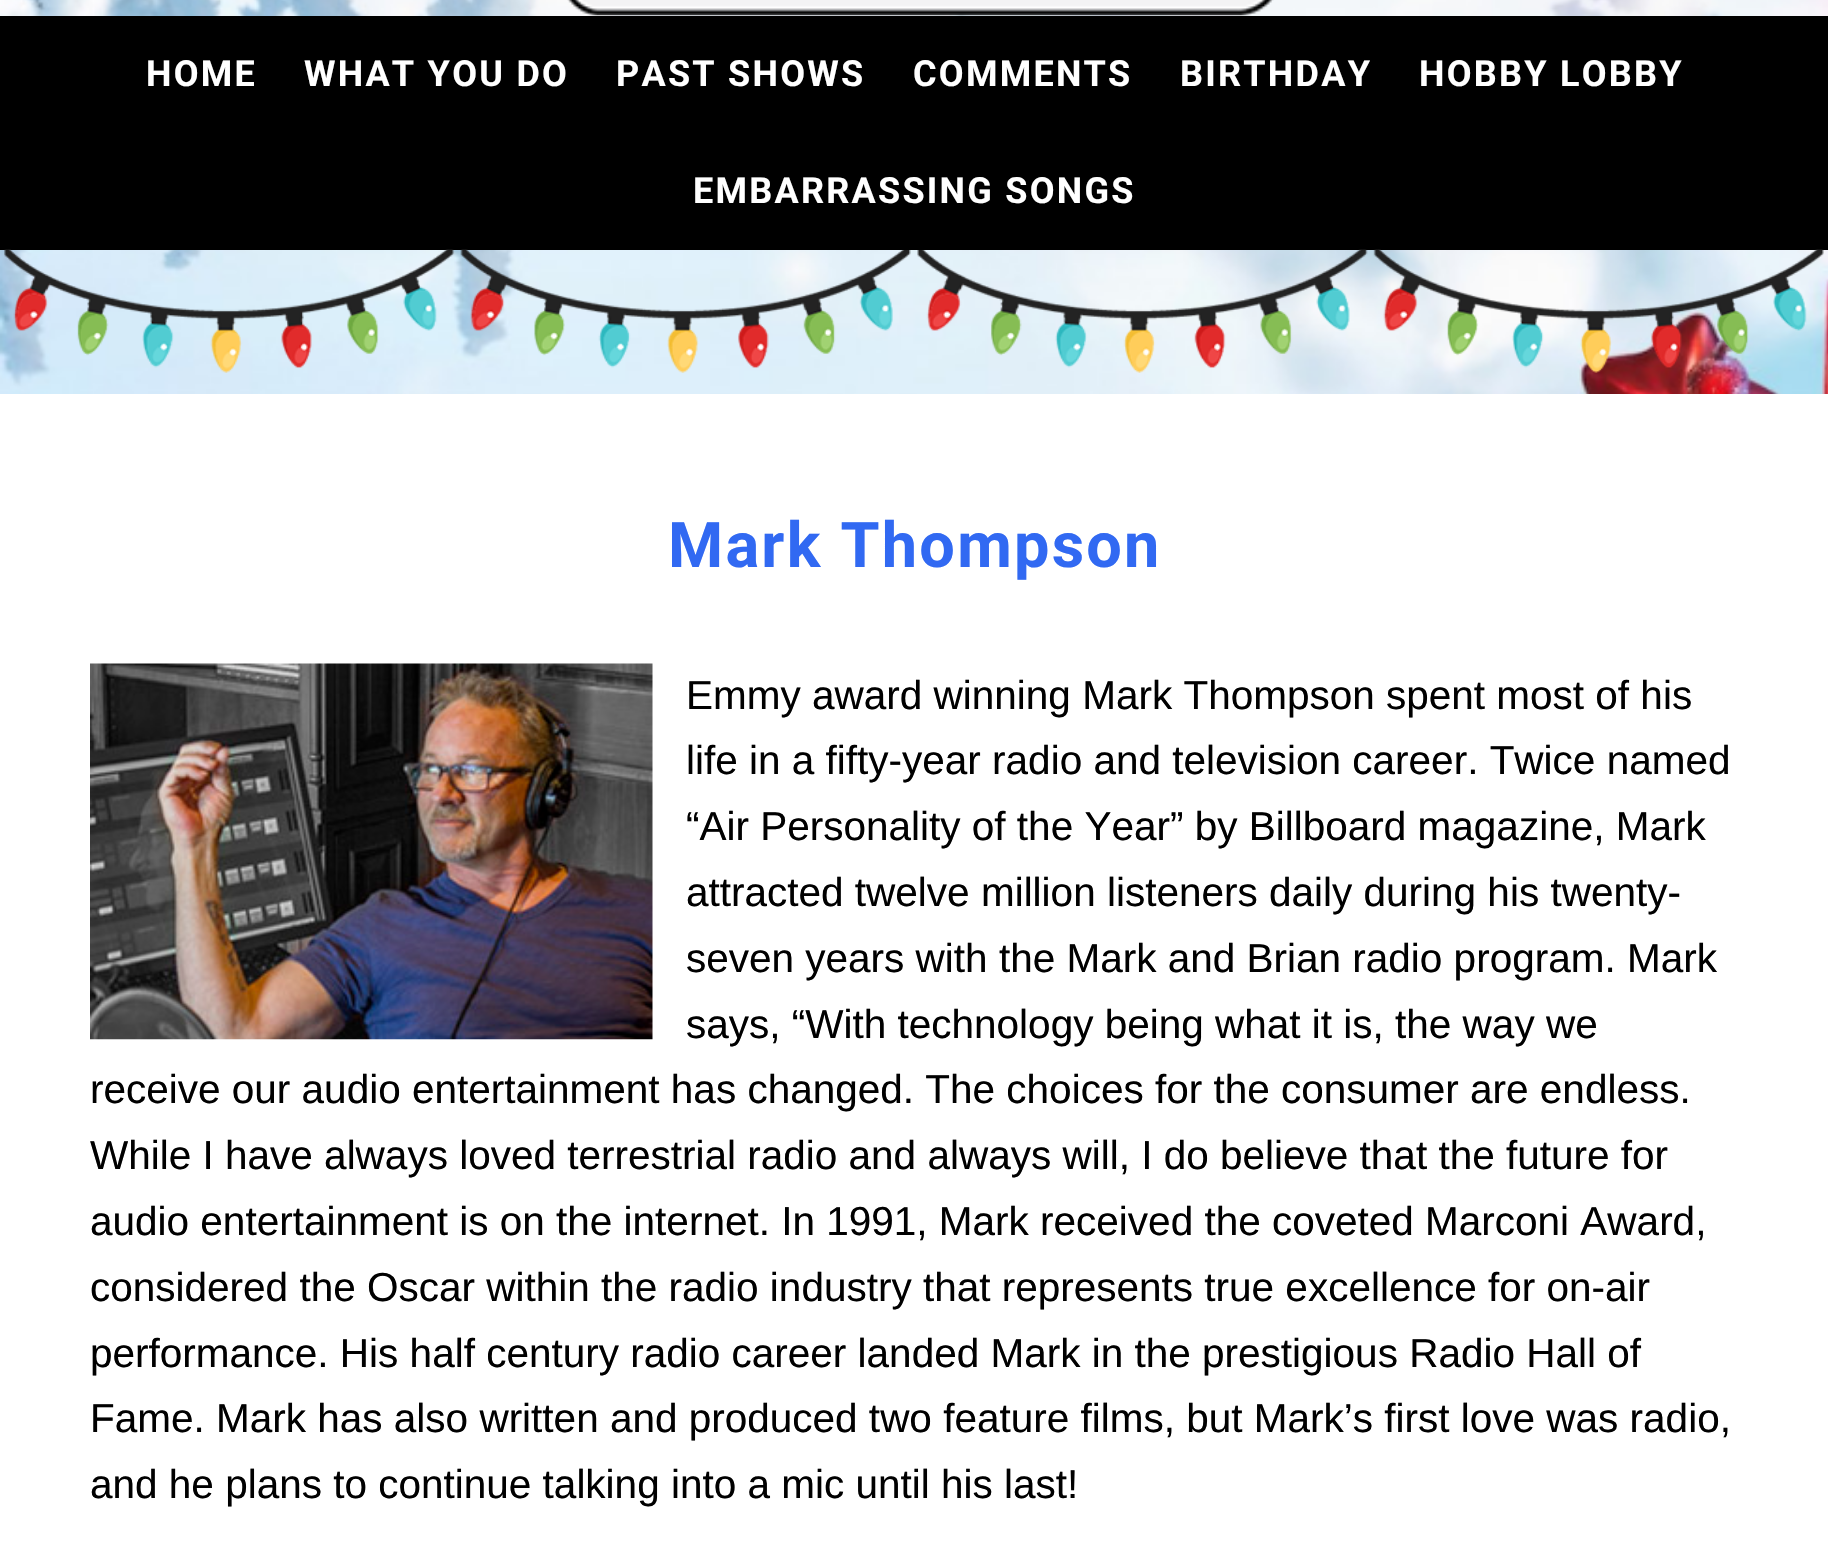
void draw(SkCanvas* canvas) {
	SkPaint paint;
	paint.setAntiAlias(true);
	auto spacedText = [&](const char* s, float x, float y, const SkFont& font, const SkPaint& ink, float letter, float word) {
		std::vector<SkGlyphID> glyphs(font.countText(s, strlen(s), SkTextEncoding::kUTF8));
		std::vector<float> xs(glyphs.size());
		font.textToGlyphs(s, strlen(s), SkTextEncoding::kUTF8, glyphs);
		font.getXPos(glyphs, xs, x);
		float extra = 0;
		for (size_t i = 0; i < glyphs.size(); i++) {
			xs[i] += extra;
			extra += letter + word * (glyphs[i] == font.unicharToGlyph(' '));
		}
		canvas->drawTextBlob(SkTextBlob::MakeFromPosHGlyphs(glyphs, xs, y, font), 0, 0, ink);
	};
	canvas->clear(0xffffffff);
	canvas->drawImageRect(SkImages::DeferredFromEncodedData(SkData::MakeFromFileName("img1.png")), SkRect::MakeXYWH(0, 0, 1828, 394), SkSamplingOptions());
	canvas->drawImageRect(SkImages::DeferredFromEncodedData(SkData::MakeFromFileName("img2.png")), SkRect::MakeXYWH(567, 0, 707, 16), SkSamplingOptions());
	paint.setColor(0xff000000);
	canvas->drawRect(SkRect::MakeXYWH(0, 16, 1828, 234), paint);
	SkFont f1(fontMgr->matchFamilyStyle("Roboto", SkFontStyle::Bold()), 36);
	f1.setSubpixel(true);
	paint.setColor(0xffffffff);
	spacedText("HOME", 146, 86, f1, paint, 2.25, 0);
	spacedText("WHAT YOU DO", 304, 86, f1, paint, 2.25, 0);
	spacedText("PAST SHOWS", 616, 86, f1, paint, 2.25, 0);
	spacedText("COMMENTS", 913, 86, f1, paint, 2.25, 0);
	spacedText("BIRTHDAY", 1180, 86, f1, paint, 2.25, 0);
	spacedText("HOBBY LOBBY", 1419, 86, f1, paint, 2.25, 0);
	canvas->drawImageRect(SkImages::DeferredFromEncodedData(SkData::MakeFromFileName("img3.png")), SkRect::MakeXYWH(4, 249, 1820, 124), SkSamplingOptions());
	paint.setColor(0xff000000);
	canvas->drawRect(SkRect::MakeXYWH(902, 249, 23, 1), paint);
	paint.setColor(0xffffffff);
	spacedText("EMBARRASSING SONGS", 693, 203, f1, paint, 2.25, 0);
	SkFont f2(fontMgr->matchFamilyStyle("Roboto", SkFontStyle::Bold()), 63);
	f2.setSubpixel(true);
	paint.setColor(0xff3169f2);
	spacedText("Mark Thompson", 668, 567, f2, paint, 2.25, 0);
	canvas->drawImageRect(SkImages::DeferredFromEncodedData(SkData::MakeFromFileName("img4.png")), SkRect::MakeXYWH(90, 663, 563, 377), SkSamplingOptions());
	SkFont f3(fontMgr->matchFamilyStyle("Liberation Sans", SkFontStyle::Normal()), 40.5);
	f3.setSubpixel(true);
	paint.setColor(0xff000000);
	canvas->drawString("Emmy award winning Mark Thompson spent most of his", 686, 709, f3, paint);
	canvas->drawString("life in a fifty-year radio and television career. Twice named", 686, 774, f3, paint);
	canvas->drawString("“Air Personality of the Year” by Billboard magazine, Mark", 686, 840, f3, paint);
	canvas->drawString("attracted twelve million listeners daily during his twenty-", 686, 906, f3, paint);
	canvas->drawString("seven years with the Mark and Brian radio program. Mark", 686, 972, f3, paint);
	canvas->drawString("says, “With technology being what it is, the way we", 686, 1038, f3, paint);
	canvas->drawString("receive our audio entertainment has changed. The choices for the consumer are endless.", 90, 1103, f3, paint);
	canvas->drawString("While I have always loved terrestrial radio and always will, I do believe that the future for", 90, 1169, f3, paint);
	canvas->drawString("audio entertainment is on the internet. In 1991, Mark received the coveted Marconi Award,", 90, 1235, f3, paint);
	canvas->drawString("considered the Oscar within the radio industry that represents true excellence for on-air", 90, 1301, f3, paint);
	canvas->drawString("performance. His half century radio career landed Mark in the prestigious Radio Hall of", 90, 1367, f3, paint);
	canvas->drawString("Fame. Mark has also written and produced two feature films, but Mark’s first love was radio,", 90, 1432, f3, paint);
	canvas->drawString("and he plans to continue talking into a mic until his last!", 90, 1498, f3, paint);
}
